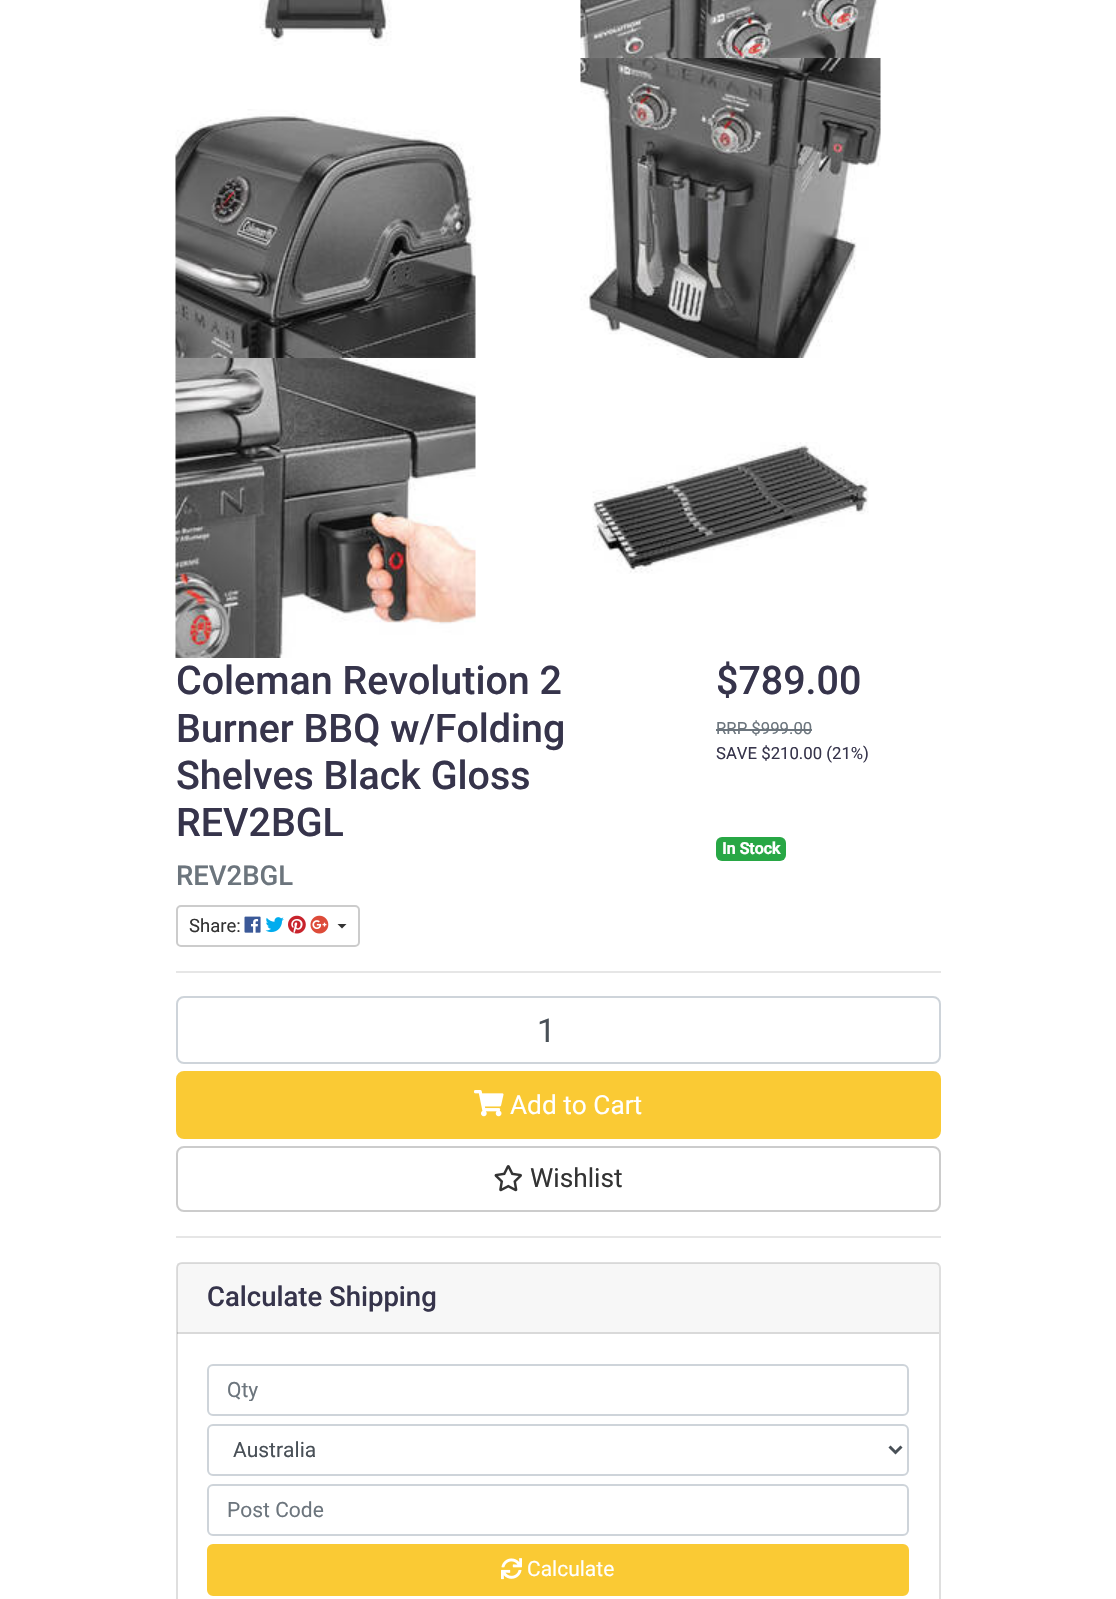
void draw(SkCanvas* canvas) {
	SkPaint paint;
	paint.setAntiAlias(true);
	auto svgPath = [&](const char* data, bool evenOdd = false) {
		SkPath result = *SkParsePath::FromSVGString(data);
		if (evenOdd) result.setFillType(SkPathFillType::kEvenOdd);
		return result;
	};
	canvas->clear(0xffffffff);
	canvas->drawImageRect(SkImages::DeferredFromEncodedData(SkData::MakeFromFileName("img1.png")), SkRect::MakeXYWH(259, 0, 133, 46), SkSamplingOptions());
	canvas->drawImageRect(SkImages::DeferredFromEncodedData(SkData::MakeFromFileName("img2.png")), SkRect::MakeXYWH(580, 0, 299, 58), SkSamplingOptions());
	canvas->drawImageRect(SkImages::DeferredFromEncodedData(SkData::MakeFromFileName("img3.png")), SkRect::MakeXYWH(175, 109, 301, 249), SkSamplingOptions());
	canvas->drawImageRect(SkImages::DeferredFromEncodedData(SkData::MakeFromFileName("img4.png")), SkRect::MakeXYWH(580, 58, 301, 300), SkSamplingOptions());
	canvas->drawImageRect(SkImages::DeferredFromEncodedData(SkData::MakeFromFileName("img5.png")), SkRect::MakeXYWH(175, 358, 301, 300), SkSamplingOptions());
	canvas->drawImageRect(SkImages::DeferredFromEncodedData(SkData::MakeFromFileName("img6.png")), SkRect::MakeXYWH(592, 442, 277, 132), SkSamplingOptions());
	SkFont f1(fontMgr->matchFamilyStyle("Roboto", SkFontStyle(500, SkFontStyle::kNormal_Width, SkFontStyle::kUpright_Slant)), 39.4);
	f1.setSubpixel(true);
	paint.setColor(0xff36344b);
	canvas->drawString("Coleman Revolution 2", 176, 694, f1, paint);
	canvas->drawString("Burner BBQ w/Folding", 176, 742, f1, paint);
	canvas->drawString("Shelves Black Gloss", 176, 789, f1, paint);
	canvas->drawString("REV2BGL", 176, 836, f1, paint);
	SkFont f2(fontMgr->matchFamilyStyle("Roboto", SkFontStyle(500, SkFontStyle::kNormal_Width, SkFontStyle::kUpright_Slant)), 27.5);
	f2.setSubpixel(true);
	paint.setColor(0xff6c757d);
	canvas->drawString("REV2BGL", 176, 885, f2, paint);
	paint.setStroke(true);
	paint.setStrokeWidth(2);
	paint.setColor(0xffcccccc);
	canvas->drawRoundRect(SkRect::MakeXYWH(177, 906, 182, 40), 4, 4, paint);
	SkFont f3(fontMgr->matchFamilyStyle("Roboto", SkFontStyle::Normal()), 18.5);
	f3.setSubpixel(true);
	paint.setStroke(false);
	paint.setColor(0xff333333);
	canvas->drawString("Share:", 189, 932, f3, paint);
	canvas->drawImageRect(SkImages::DeferredFromEncodedData(SkData::MakeFromFileName("img7.png")), SkRect::MakeXYWH(244, 916, 17, 17), SkSamplingOptions());
	canvas->drawImageRect(SkImages::DeferredFromEncodedData(SkData::MakeFromFileName("img8.png")), SkRect::MakeXYWH(265, 917, 19, 16), SkSamplingOptions());
	canvas->drawImageRect(SkImages::DeferredFromEncodedData(SkData::MakeFromFileName("img9.png")), SkRect::MakeXYWH(288, 915, 18, 19), SkSamplingOptions());
	canvas->drawImageRect(SkImages::DeferredFromEncodedData(SkData::MakeFromFileName("img10.png")), SkRect::MakeXYWH(310, 915, 19, 19), SkSamplingOptions());
	canvas->drawPath(svgPath("M337.5 924H346.5L342 928.5Z"), paint);
	paint.setColor(0xff36344b);
	canvas->drawString("$789.00", 716, 694, f1, paint);
	SkFont f4(fontMgr->matchFamilyStyle("Roboto", SkFontStyle::Normal()), 16.75);
	f4.setSubpixel(true);
	paint.setColor(0xff6c757d);
	canvas->drawString("RRP $999.00", 716, 734, f4, paint);
	canvas->drawRect(SkRect::MakeXYWH(716, 729, 96, 2), paint);
	paint.setColor(0xff36344b);
	canvas->drawString("SAVE $210.00 (21%)", 716, 759, f4, paint);
	paint.setColor(0xff28a745);
	canvas->drawRoundRect(SkRect::MakeXYWH(716, 837, 70, 24), 6, 6, paint);
	SkFont f5(fontMgr->matchFamilyStyle("Roboto", SkFontStyle::Bold()), 16);
	f5.setSubpixel(true);
	paint.setColor(0xffffffff);
	canvas->drawString("In Stock", 722, 854, f5, paint);
	paint.setColor(0xffe6e6e6);
	canvas->drawRect(SkRect::MakeXYWH(176, 971, 765, 2), paint);
	paint.setStroke(true);
	paint.setColor(0xffced4da);
	canvas->drawRoundRect(SkRect::MakeXYWH(177, 997, 763, 66), 7, 7, paint);
	SkFont f6(fontMgr->matchFamilyStyle("Roboto", SkFontStyle::Normal()), 33);
	f6.setSubpixel(true);
	paint.setStroke(false);
	paint.setColor(0xff495057);
	canvas->drawString("1", 537, 1042, f6, paint);
	paint.setColor(0xfffaca34);
	canvas->drawRoundRect(SkRect::MakeXYWH(177, 1072, 763, 66), 7, 7, paint);
	paint.setStroke(true);
	canvas->drawRoundRect(SkRect::MakeXYWH(177, 1072, 763, 66), 7, 7, paint);
	canvas->drawImageRect(SkImages::DeferredFromEncodedData(SkData::MakeFromFileName("img11.png")), SkRect::MakeXYWH(474, 1090, 30, 27), SkSamplingOptions());
	SkFont f7(fontMgr->matchFamilyStyle("Roboto", SkFontStyle::Normal()), 26.25);
	f7.setSubpixel(true);
	paint.setStroke(false);
	paint.setColor(0xffffffff);
	canvas->drawString("Add to Cart", 510, 1114, f7, paint);
	paint.setStroke(true);
	paint.setColor(0xffcccccc);
	canvas->drawRoundRect(SkRect::MakeXYWH(177, 1147, 763, 64), 7, 7, paint);
	canvas->drawImageRect(SkImages::DeferredFromEncodedData(SkData::MakeFromFileName("img12.png")), SkRect::MakeXYWH(494, 1165, 28, 27), SkSamplingOptions());
	paint.setStroke(false);
	paint.setColor(0xff333333);
	canvas->drawString("Wishlist", 530, 1187, f7, paint);
	paint.setColor(0xffe6e6e6);
	canvas->drawRect(SkRect::MakeXYWH(176, 1236, 765, 2), paint);
	paint.setStroke(true);
	paint.setColor(0xffdfdfdf);
	canvas->drawRoundRect(SkRect::MakeXYWH(177, 1263, 763, 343), 5, 5, paint);
	paint.setStroke(false);
	paint.setColor(0x08000000);
	canvas->drawRect(SkRect::MakeXYWH(177, 1263, 762, 71), paint);
	paint.setColor(0x1f000000);
	canvas->drawRect(SkRect::MakeXYWH(177, 1332, 762, 2), paint);
	paint.setColor(0xff36344b);
	canvas->drawString("Calculate Shipping", 207, 1306, f2, paint);
	paint.setStroke(true);
	paint.setColor(0xffced4da);
	canvas->drawRoundRect(SkRect::MakeXYWH(208, 1365, 700, 50), 5, 5, paint);
	canvas->save();
	canvas->clipRect(SkRect::MakeXYWH(227, 1377, 640, 24));
	SkFont f8(fontMgr->matchFamilyStyle("Roboto", SkFontStyle::Normal()), 21);
	f8.setSubpixel(true);
	paint.setStroke(false);
	paint.setColor(0xff6c757d);
	canvas->drawString("Qty", 227, 1397, f8, paint);
	canvas->restore();
	paint.setStroke(true);
	paint.setColor(0xffced4da);
	canvas->drawRoundRect(SkRect::MakeXYWH(208, 1425, 700, 50), 5, 5, paint);
	paint.setStrokeWidth(3);
	paint.setColor(0xff495057);
	canvas->drawPath(svgPath("M889.5 1446.5L895.5 1452.5L901.5 1446.5"), paint);
	paint.setStroke(false);
	canvas->drawString("Australia", 233, 1457, f8, paint);
	paint.setStroke(true);
	paint.setStrokeWidth(2);
	paint.setColor(0xffced4da);
	canvas->drawRoundRect(SkRect::MakeXYWH(208, 1485, 700, 50), 5, 5, paint);
	paint.setStroke(false);
	paint.setColor(0xff6c757d);
	canvas->drawString("Post Code", 227, 1517, f8, paint);
	paint.setColor(0xfffaca34);
	canvas->drawRoundRect(SkRect::MakeXYWH(208, 1545, 700, 50), 5, 5, paint);
	paint.setStroke(true);
	canvas->drawRoundRect(SkRect::MakeXYWH(208, 1545, 700, 50), 5, 5, paint);
	canvas->drawImageRect(SkImages::DeferredFromEncodedData(SkData::MakeFromFileName("img13.png")), SkRect::MakeXYWH(501, 1558, 21, 22), SkSamplingOptions());
	paint.setStroke(false);
	paint.setColor(0xffffffff);
	canvas->drawString("Calculate", 527, 1576, f8, paint);
}
